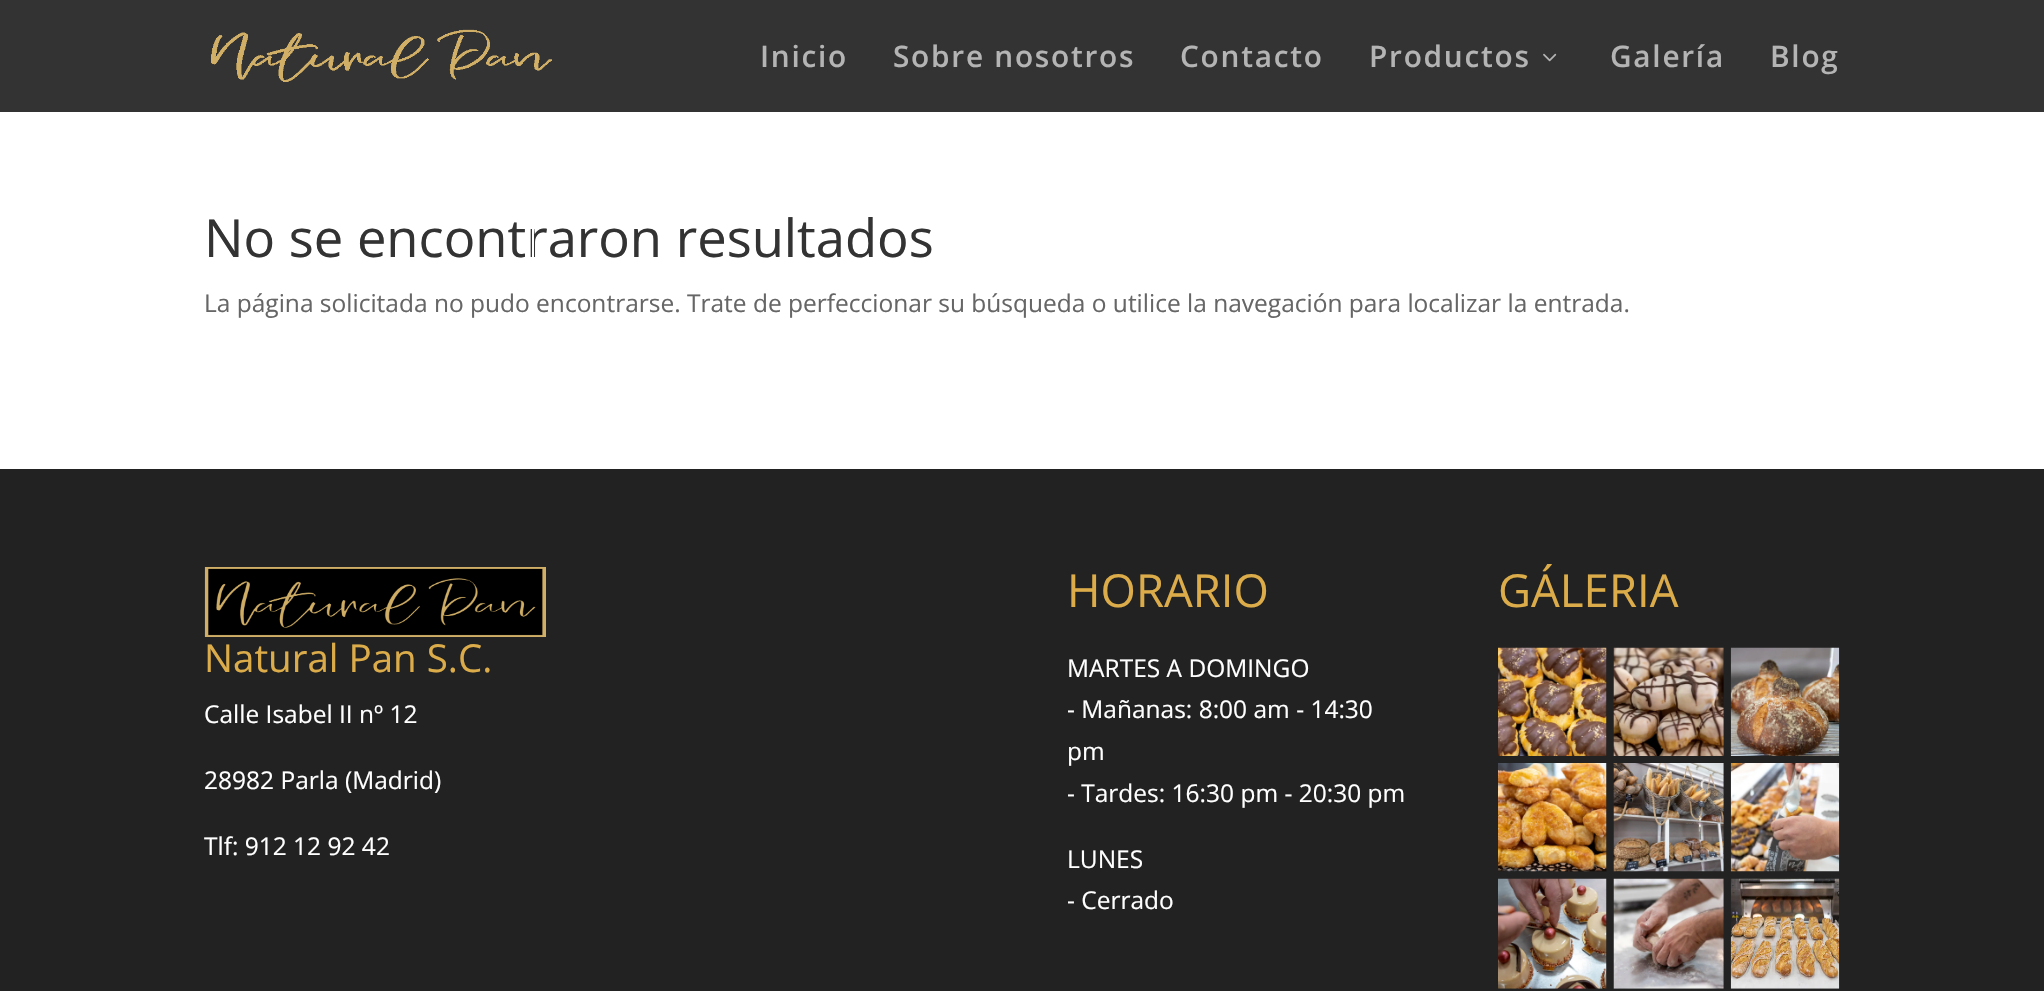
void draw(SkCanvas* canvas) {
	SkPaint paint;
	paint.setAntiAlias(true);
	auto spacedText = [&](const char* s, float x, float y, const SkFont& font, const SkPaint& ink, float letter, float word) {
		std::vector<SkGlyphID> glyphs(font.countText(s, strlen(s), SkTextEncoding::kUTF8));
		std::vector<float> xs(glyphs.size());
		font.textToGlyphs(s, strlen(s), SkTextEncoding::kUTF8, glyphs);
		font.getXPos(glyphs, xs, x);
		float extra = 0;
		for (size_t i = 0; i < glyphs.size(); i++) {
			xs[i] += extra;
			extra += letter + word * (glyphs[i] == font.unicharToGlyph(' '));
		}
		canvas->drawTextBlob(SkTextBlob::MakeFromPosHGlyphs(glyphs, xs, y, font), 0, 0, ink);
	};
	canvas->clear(0xffffffff);
	paint.setColor(0xff333333);
	canvas->drawRect(SkRect::MakeXYWH(0, 0, 2044, 112), paint);
	canvas->drawImageRect(SkImages::DeferredFromEncodedData(SkData::MakeFromFileName("img1.png")), SkRect::MakeXYWH(211, 29, 341, 53), SkSamplingOptions());
	SkFont f1(fontMgr->matchFamilyStyle("Open Sans", SkFontStyle(600, SkFontStyle::kNormal_Width, SkFontStyle::kUpright_Slant)), 29.75);
	f1.setSubpixel(true);
	paint.setColor(0xffb4b4b4);
	spacedText("Inicio", 760, 67, f1, paint, 1.75, 0);
	spacedText("Sobre nosotros", 893, 67, f1, paint, 1.75, 0);
	spacedText("Contacto", 1180, 67, f1, paint, 1.75, 0);
	spacedText("Productos", 1369, 67, f1, paint, 1.75, 0);
	canvas->drawImageRect(SkImages::DeferredFromEncodedData(SkData::MakeFromFileName("img2.png")), SkRect::MakeXYWH(1543, 53, 14, 9), SkSamplingOptions());
	spacedText("Galería", 1610, 67, f1, paint, 1.75, 0);
	spacedText("Blog", 1770, 67, f1, paint, 1.75, 0);
	SkFont f2(fontMgr->matchFamilyStyle("Open Sans", SkFontStyle::Normal()), 52.5);
	f2.setSubpixel(true);
	paint.setColor(0xff333333);
	canvas->drawString("No se encontraron resultados", 204, 257, f2, paint);
	SkFont f3(fontMgr->matchFamilyStyle("Open Sans", SkFontStyle::Normal()), 24.5);
	f3.setSubpixel(true);
	paint.setColor(0xff666666);
	canvas->drawString("La página solicitada no pudo encontrarse. Trate de perfeccionar su búsqueda o utilice la navegación para localizar la entrada.", 204, 312, f3, paint);
	paint.setColor(0xffffffff);
	canvas->drawRect(SkRect::MakeXYWH(532, 228, 2, 29), paint);
	paint.setColor(0xff222222);
	canvas->drawRect(SkRect::MakeXYWH(0, 469, 2044, 522), paint);
	canvas->drawImageRect(SkImages::DeferredFromEncodedData(SkData::MakeFromFileName("img3.png")), SkRect::MakeXYWH(204, 567, 342, 70), SkSamplingOptions());
	SkFont f4(fontMgr->matchFamilyStyle("Open Sans", SkFontStyle::Normal()), 38.5);
	f4.setSubpixel(true);
	paint.setColor(0xffdbac49);
	canvas->drawString("Natural Pan S.C.", 204, 672, f4, paint);
	paint.setColor(0xffffffff);
	canvas->drawString("Calle Isabel II nº 12", 204, 723, f3, paint);
	canvas->drawString("28982 Parla (Madrid)", 204, 789, f3, paint);
	canvas->drawString("Tlf: 912 12 92 42", 204, 855, f3, paint);
	SkFont f5(fontMgr->matchFamilyStyle("Open Sans", SkFontStyle::Normal()), 45.5);
	f5.setSubpixel(true);
	paint.setColor(0xffdbac49);
	canvas->drawString("HORARIO", 1067, 607, f5, paint);
	paint.setColor(0xffffffff);
	canvas->drawString("MARTES A DOMINGO", 1067, 677, f3, paint);
	canvas->drawString("- Mañanas: 8:00 am - 14:30", 1067, 718, f3, paint);
	canvas->drawString("pm", 1067, 760, f3, paint);
	canvas->drawString("- Tardes: 16:30 pm - 20:30 pm", 1067, 802, f3, paint);
	canvas->drawString("LUNES", 1067, 868, f3, paint);
	canvas->drawString("- Cerrado", 1067, 909, f3, paint);
	paint.setColor(0xffdbac49);
	canvas->drawString("GÁLERIA", 1498, 607, f5, paint);
	paint.setColor(0xff1f1f1f);
	canvas->drawRect(SkRect::MakeXYWH(1606, 648, 1, 108), paint);
	canvas->drawImageRect(SkImages::DeferredFromEncodedData(SkData::MakeFromFileName("img4.png")), SkRect::MakeXYWH(1498, 647, 109, 109), SkSamplingOptions());
	canvas->drawRect(SkRect::MakeXYWH(1723, 648, 1, 108), paint);
	canvas->drawImageRect(SkImages::DeferredFromEncodedData(SkData::MakeFromFileName("img5.png")), SkRect::MakeXYWH(1613, 647, 111, 109), SkSamplingOptions());
	canvas->drawImageRect(SkImages::DeferredFromEncodedData(SkData::MakeFromFileName("img6.png")), SkRect::MakeXYWH(1730, 647, 110, 109), SkSamplingOptions());
	canvas->drawRect(SkRect::MakeXYWH(1498, 763, 109, 109), paint);
	canvas->drawImageRect(SkImages::DeferredFromEncodedData(SkData::MakeFromFileName("img7.png")), SkRect::MakeXYWH(1498, 763, 109, 109), SkSamplingOptions());
	canvas->drawRect(SkRect::MakeXYWH(1614, 763, 110, 109), paint);
	canvas->drawImageRect(SkImages::DeferredFromEncodedData(SkData::MakeFromFileName("img8.png")), SkRect::MakeXYWH(1613, 763, 111, 109), SkSamplingOptions());
	canvas->drawRect(SkRect::MakeXYWH(1731, 871, 108, 1), paint);
	canvas->drawImageRect(SkImages::DeferredFromEncodedData(SkData::MakeFromFileName("img9.png")), SkRect::MakeXYWH(1730, 763, 110, 109), SkSamplingOptions());
	canvas->drawRect(SkRect::MakeXYWH(1498, 879, 109, 110), paint);
	canvas->drawImageRect(SkImages::DeferredFromEncodedData(SkData::MakeFromFileName("img10.png")), SkRect::MakeXYWH(1498, 878, 109, 111), SkSamplingOptions());
	canvas->drawRect(SkRect::MakeXYWH(1614, 879, 110, 110), paint);
	canvas->drawImageRect(SkImages::DeferredFromEncodedData(SkData::MakeFromFileName("img11.png")), SkRect::MakeXYWH(1613, 878, 111, 111), SkSamplingOptions());
	canvas->drawRect(SkRect::MakeXYWH(1731, 988, 108, 1), paint);
	canvas->drawImageRect(SkImages::DeferredFromEncodedData(SkData::MakeFromFileName("img12.png")), SkRect::MakeXYWH(1730, 878, 110, 111), SkSamplingOptions());
}
